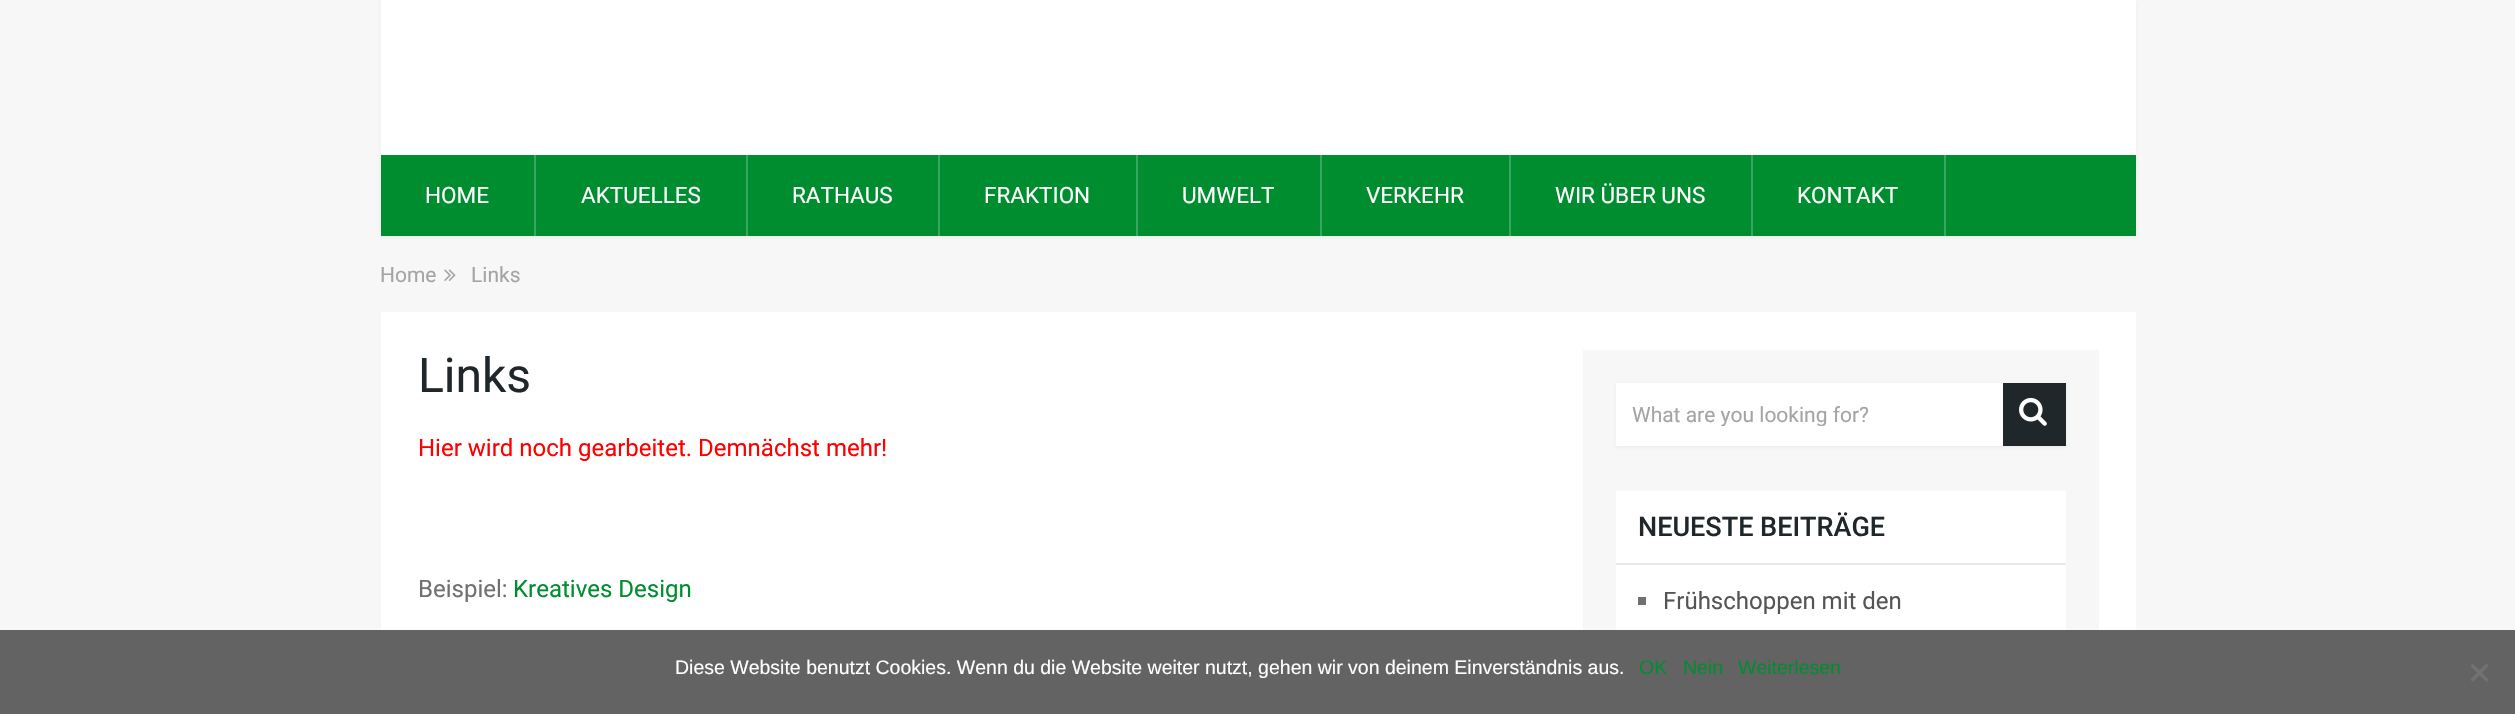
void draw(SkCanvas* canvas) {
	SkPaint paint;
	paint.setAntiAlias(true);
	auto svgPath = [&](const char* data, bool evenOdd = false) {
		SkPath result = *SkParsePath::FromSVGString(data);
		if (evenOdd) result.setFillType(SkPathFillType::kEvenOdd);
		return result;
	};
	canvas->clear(0xfff7f7f7);
	paint.setColor(0x0d000000);
	paint.setMaskFilter(SkMaskFilter::MakeBlur(kNormal_SkBlurStyle, 1.5));
	canvas->drawRect(SkRect::MakeXYWH(381, 2, 1755, 235), paint);
	paint.setMaskFilter(nullptr);
	paint.setColor(0xffffffff);
	canvas->drawRect(SkRect::MakeXYWH(381, 0, 1755, 155), paint);
	paint.setColor(0xff008d30);
	canvas->drawRect(SkRect::MakeXYWH(381, 155, 1755, 81), paint);
	paint.setColor(0xff38a65e);
	canvas->drawRect(SkRect::MakeXYWH(534, 155, 2, 81), paint);
	SkFont f1(fontMgr->matchFamilyStyle("Roboto", SkFontStyle::Normal()), 22.5);
	f1.setSubpixel(true);
	paint.setColor(0xffffffff);
	canvas->drawString("HOME", 425, 203, f1, paint);
	paint.setColor(0xff38a65e);
	canvas->drawRect(SkRect::MakeXYWH(746, 155, 2, 81), paint);
	paint.setColor(0xffffffff);
	canvas->drawString("AKTUELLES", 581, 203, f1, paint);
	paint.setColor(0xff38a65e);
	canvas->drawRect(SkRect::MakeXYWH(938, 155, 2, 81), paint);
	paint.setColor(0xffffffff);
	canvas->drawString("RATHAUS", 792, 203, f1, paint);
	paint.setColor(0xff38a65e);
	canvas->drawRect(SkRect::MakeXYWH(1136, 155, 2, 81), paint);
	paint.setColor(0xffffffff);
	canvas->drawString("FRAKTION", 984, 203, f1, paint);
	paint.setColor(0xff38a65e);
	canvas->drawRect(SkRect::MakeXYWH(1320, 155, 2, 81), paint);
	paint.setColor(0xffffffff);
	canvas->drawString("UMWELT", 1182, 203, f1, paint);
	paint.setColor(0xff38a65e);
	canvas->drawRect(SkRect::MakeXYWH(1509, 155, 2, 81), paint);
	paint.setColor(0xffffffff);
	canvas->drawString("VERKEHR", 1366, 203, f1, paint);
	paint.setColor(0xff38a65e);
	canvas->drawRect(SkRect::MakeXYWH(1751, 155, 2, 81), paint);
	paint.setColor(0xffffffff);
	canvas->drawString("WIR ÜBER UNS", 1555, 203, f1, paint);
	paint.setColor(0xff38a65e);
	canvas->drawRect(SkRect::MakeXYWH(1944, 155, 2, 81), paint);
	paint.setColor(0xffffffff);
	canvas->drawString("KONTAKT", 1797, 203, f1, paint);
	SkFont f2(fontMgr->matchFamilyStyle("Roboto", SkFontStyle::Normal()), 21);
	f2.setSubpixel(true);
	paint.setColor(0xffa4a4a4);
	canvas->drawString("Home", 380, 282, f2, paint);
	canvas->drawImageRect(SkImages::DeferredFromEncodedData(SkData::MakeFromFileName("img1.png")), SkRect::MakeXYWH(444, 269, 12, 12), SkSamplingOptions());
	canvas->drawString("Links", 471, 282, f2, paint);
	paint.setColor(0xffffffff);
	canvas->drawRect(SkRect::MakeXYWH(381, 312, 1755, 318), paint);
	SkFont f3(fontMgr->matchFamilyStyle("Roboto", SkFontStyle::Normal()), 48);
	f3.setSubpixel(true);
	paint.setColor(0xff1f272a);
	canvas->drawString("Links", 418, 392, f3, paint);
	SkFont f4(fontMgr->matchFamilyStyle("Roboto", SkFontStyle::Normal()), 24);
	f4.setSubpixel(true);
	paint.setColor(0xffff0000);
	canvas->drawString("Hier wird noch gearbeitet. Demnächst mehr!", 418, 456, f4, paint);
	paint.setColor(0xff707070);
	canvas->drawString("Beispiel:", 418, 597, f4, paint);
	paint.setColor(0xff008d30);
	canvas->drawString("Kreatives Design", 513, 597, f4, paint);
	paint.setColor(0xfff7f7f7);
	canvas->drawRect(SkRect::MakeXYWH(1583, 350, 516, 280), paint);
	paint.setColor(0x0d000000);
	paint.setMaskFilter(SkMaskFilter::MakeBlur(kNormal_SkBlurStyle, 1.5));
	canvas->drawRect(SkRect::MakeXYWH(1616, 384, 450, 63), paint);
	paint.setMaskFilter(nullptr);
	paint.setColor(0xffffffff);
	canvas->drawRect(SkRect::MakeXYWH(1616, 383, 387, 63), paint);
	canvas->save();
	canvas->clipRect(SkRect::MakeXYWH(1617, 402, 426, 24));
	paint.setColor(0xffa4a4a4);
	canvas->drawString("What are you looking for?", 1632, 422, f2, paint);
	canvas->restore();
	paint.setColor(0xff1f272a);
	canvas->drawRect(SkRect::MakeXYWH(2003, 383, 63, 63), paint);
	canvas->drawImageRect(SkImages::DeferredFromEncodedData(SkData::MakeFromFileName("img2.png")), SkRect::MakeXYWH(2019, 397, 28, 29), SkSamplingOptions());
	paint.setColor(0xffffffff);
	canvas->drawRect(SkRect::MakeXYWH(1616, 491, 450, 139), paint);
	paint.setColor(0xffe9e9e9);
	canvas->drawRect(SkRect::MakeXYWH(1616, 563, 450, 2), paint);
	SkFont f5(fontMgr->matchFamilyStyle("Roboto", SkFontStyle(500, SkFontStyle::kNormal_Width, SkFontStyle::kUpright_Slant)), 27);
	f5.setSubpixel(true);
	paint.setColor(0xff1f272a);
	canvas->drawString("NEUESTE BEITRÄGE", 1638, 536, f5, paint);
	paint.setColor(0xff707070);
	canvas->drawRect(SkRect::MakeXYWH(1638, 597, 8, 8), paint);
	paint.setColor(0xff555555);
	canvas->drawString("Frühschoppen mit den", 1663, 609, f4, paint);
	paint.setColor(0xff636363);
	canvas->drawRect(SkRect::MakeXYWH(0, 630, 2515, 84), paint);
	SkFont f6(fontMgr->matchFamilyStyle("Liberation Sans", SkFontStyle::Normal()), 19.5);
	f6.setSubpixel(true);
	paint.setColor(0xffffffff);
	canvas->drawString("Diese Website benutzt Cookies. Wenn du die Website weiter nutzt, gehen wir von deinem Einverständnis aus.", 675, 674, f6, paint);
	paint.setColor(0xff008d30);
	canvas->drawString("OK", 1639, 674, f6, paint);
	canvas->drawString("Nein", 1683, 674, f6, paint);
	canvas->drawString("Weiterlesen", 1738, 674, f6, paint);
	paint.setColor(0xff727272);
	canvas->drawPath(svgPath("M2486.5 663.5L2488.5 666L2472.5 682L2470.5 679.5Z"), paint);
	canvas->drawPath(svgPath("M2470.5 666L2472.5 663.5L2488.5 679.5L2486.5 682Z"), paint);
}
